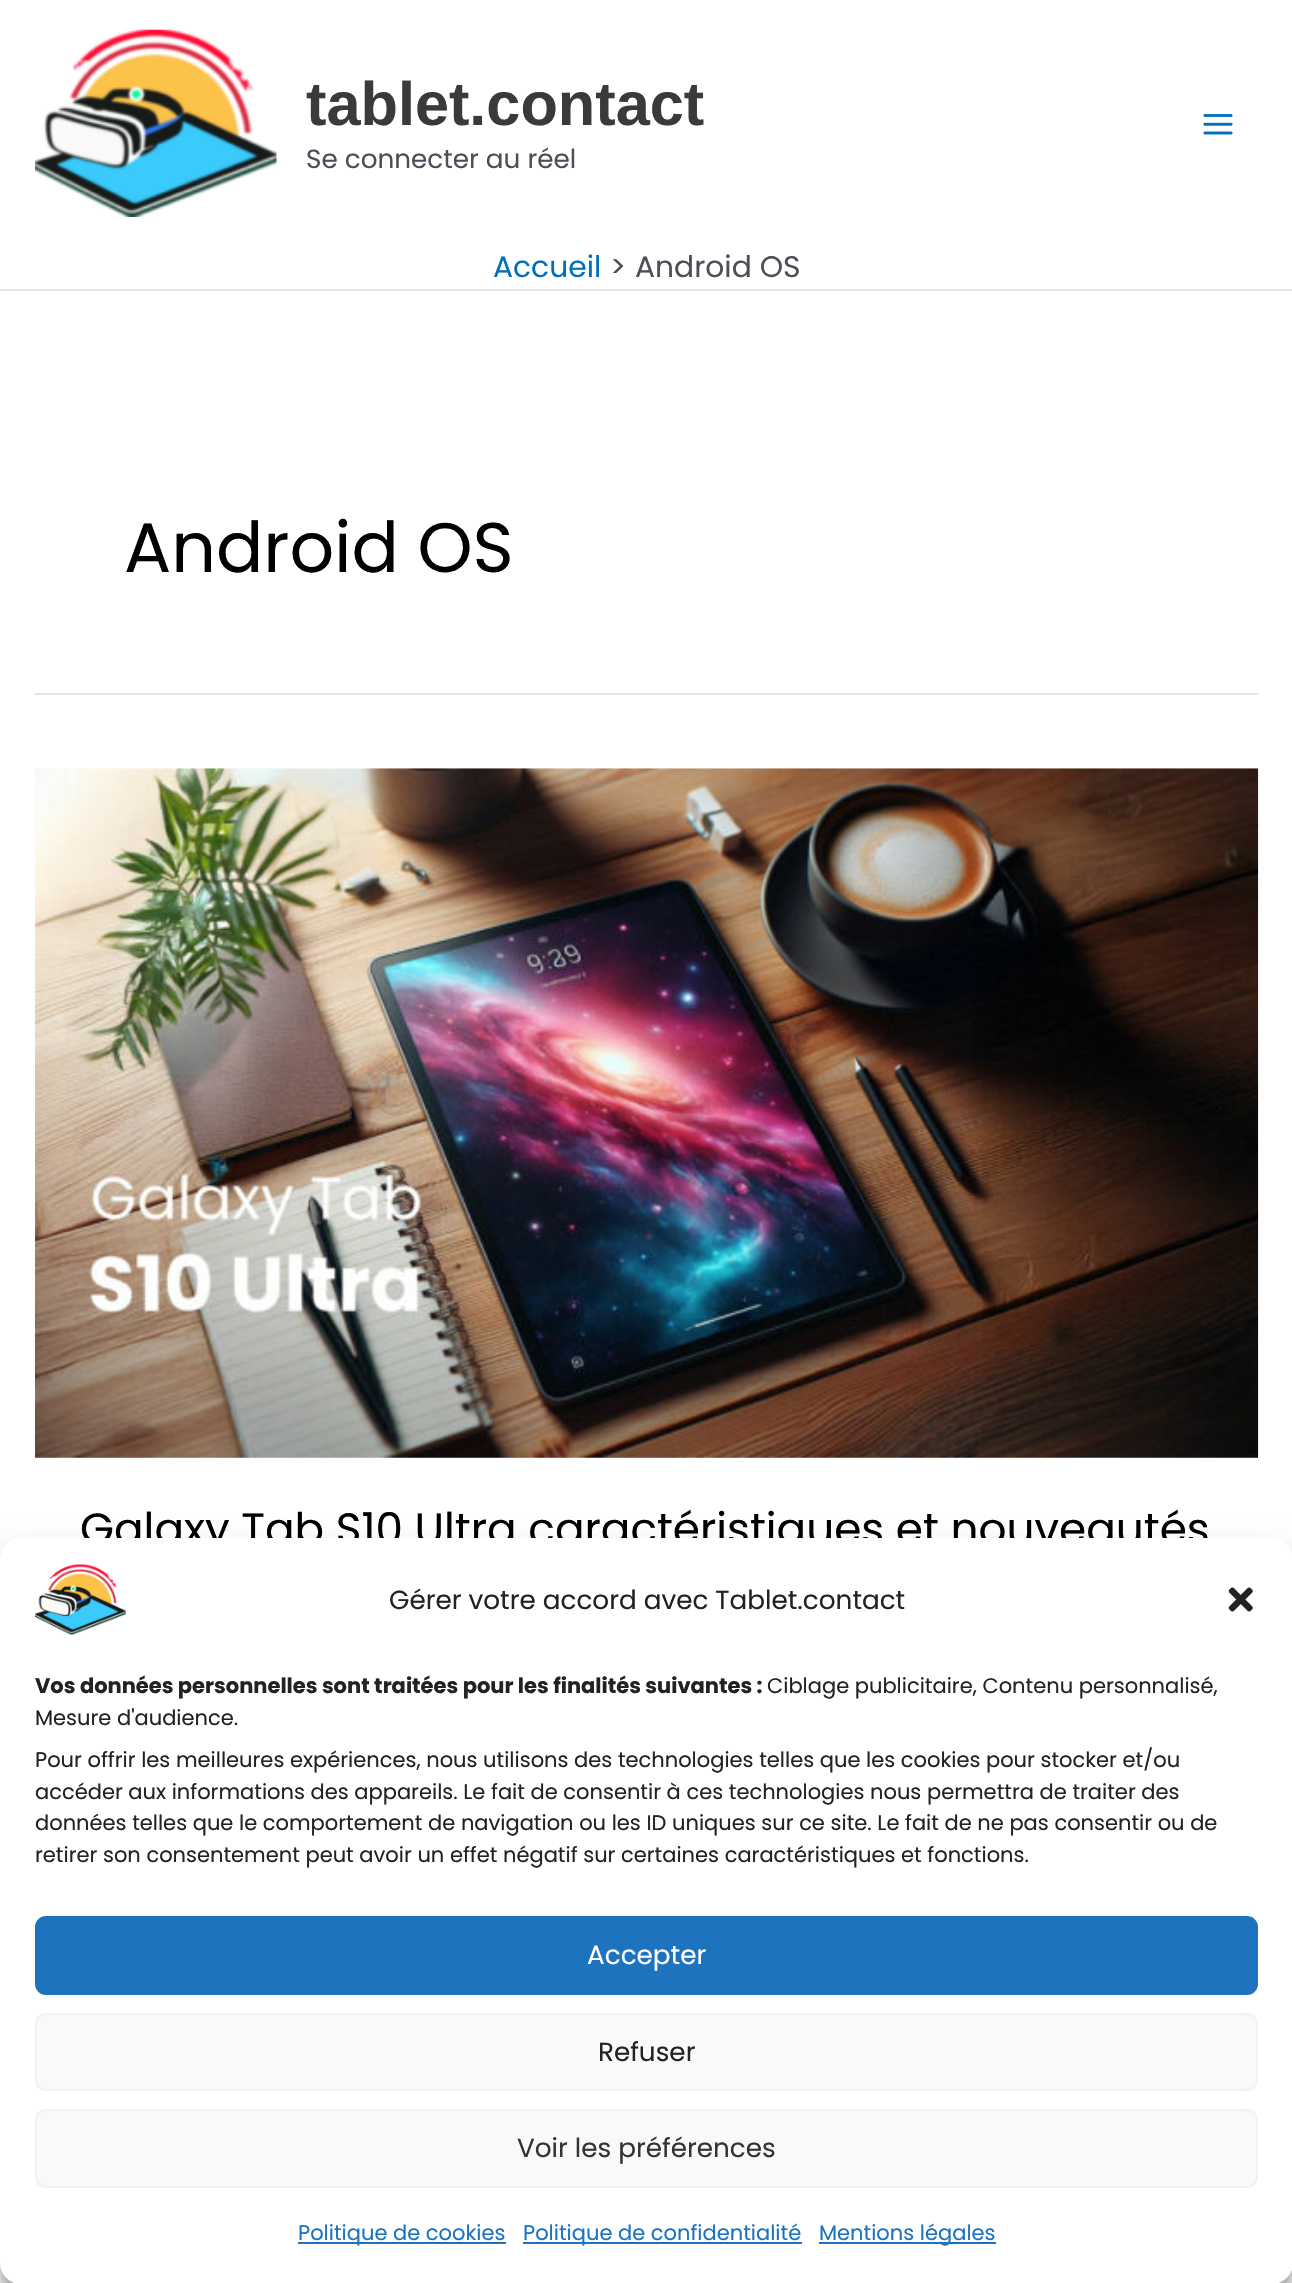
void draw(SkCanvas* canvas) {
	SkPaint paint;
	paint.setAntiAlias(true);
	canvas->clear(0xffffffff);
	paint.setColor(0xffe5e5e5);
	canvas->drawRect(SkRect::MakeXYWH(0, 289, 1292, 2), paint);
	canvas->drawImageRect(SkImages::DeferredFromEncodedData(SkData::MakeFromFileName("img1.png")), SkRect::MakeXYWH(35, 29, 242, 188), SkSamplingOptions());
	SkFont f1(fontMgr->matchFamilyStyle("Liberation Sans", SkFontStyle::Bold()), 61.25);
	f1.setSubpixel(true);
	paint.setColor(0xff3a3a3a);
	canvas->drawString("tablet.contact", 306, 125, f1, paint);
	SkFont f2(fontMgr->matchFamilyStyle("Poppins", SkFontStyle::Normal()), 26.25);
	f2.setSubpixel(true);
	paint.setColor(0xff4b4f58);
	canvas->drawString("Se connecter au réel", 306, 168, f2, paint);
	canvas->drawImageRect(SkImages::DeferredFromEncodedData(SkData::MakeFromFileName("img2.png")), SkRect::MakeXYWH(1203, 114, 30, 21), SkSamplingOptions());
	SkFont f3(fontMgr->matchFamilyStyle("Poppins", SkFontStyle::Normal()), 29.75);
	f3.setSubpixel(true);
	paint.setColor(0xff0170b9);
	canvas->drawString("Accueil", 493, 277, f3, paint);
	paint.setColor(0xff4b4f58);
	canvas->drawString(">", 610, 277, f3, paint);
	canvas->drawString("Android OS", 635, 277, f3, paint);
	paint.setColor(0xffe5e5e5);
	canvas->drawRect(SkRect::MakeXYWH(35, 693, 1223, 2), paint);
	SkFont f4(fontMgr->matchFamilyStyle("Poppins", SkFontStyle::Normal()), 70);
	f4.setSubpixel(true);
	paint.setColor(0xff000000);
	canvas->drawString("Android OS", 124, 572, f4, paint);
	canvas->drawImageRect(SkImages::DeferredFromEncodedData(SkData::MakeFromFileName("img3.png")), SkRect::MakeXYWH(35, 768, 1224, 690), SkSamplingOptions());
	SkFont f5(fontMgr->matchFamilyStyle("Poppins", SkFontStyle::Normal()), 43.75);
	f5.setSubpixel(true);
	canvas->drawString("Galaxy Tab S10 Ultra caractéristiques et nouveautés", 80, 1544, f5, paint);
	paint.setColor(0x3b000000);
	paint.setMaskFilter(SkMaskFilter::MakeBlur(kNormal_SkBlurStyle, 5));
	canvas->drawRoundRect(SkRect::MakeXYWH(0, 1549, 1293, 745), 21, 21, paint);
	paint.setMaskFilter(nullptr);
	paint.setColor(0x30000000);
	paint.setMaskFilter(SkMaskFilter::MakeBlur(kNormal_SkBlurStyle, 17.5));
	canvas->drawRoundRect(SkRect::MakeXYWH(0, 1556, 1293, 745), 21, 21, paint);
	paint.setMaskFilter(nullptr);
	paint.setColor(0xffffffff);
	canvas->drawRoundRect(SkRect::MakeXYWH(0, 1538, 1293, 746), 21, 21, paint);
	canvas->drawImageRect(SkImages::DeferredFromEncodedData(SkData::MakeFromFileName("img4.png")), SkRect::MakeXYWH(35, 1564, 91, 71), SkSamplingOptions());
	paint.setColor(0xff222222);
	canvas->drawString("Gérer votre accord avec Tablet.contact", 389, 1609, f2, paint);
	canvas->drawImageRect(SkImages::DeferredFromEncodedData(SkData::MakeFromFileName("img5.png")), SkRect::MakeXYWH(1228, 1587, 25, 25), SkSamplingOptions());
	SkFont f6(fontMgr->matchFamilyStyle("Poppins", SkFontStyle::Bold()), 21);
	f6.setSubpixel(true);
	canvas->drawString("Vos données personnelles sont traitées pour les finalités suivantes :", 35, 1693, f6, paint);
	SkFont f7(fontMgr->matchFamilyStyle("Poppins", SkFontStyle::Normal()), 21);
	f7.setSubpixel(true);
	canvas->drawString("Ciblage publicitaire, Contenu personnalisé,", 767, 1693, f7, paint);
	canvas->drawString("Mesure d'audience.", 35, 1725, f7, paint);
	canvas->drawString("Pour offrir les meilleures expériences, nous utilisons des technologies telles que les cookies pour stocker et/ou", 35, 1767, f7, paint);
	canvas->drawString("accéder aux informations des appareils. Le fait de consentir à ces technologies nous permettra de traiter des", 35, 1799, f7, paint);
	canvas->drawString("données telles que le comportement de navigation ou les ID uniques sur ce site. Le fait de ne pas consentir ou de", 35, 1830, f7, paint);
	canvas->drawString("retirer son consentement peut avoir un effet négatif sur certaines caractéristiques et fonctions.", 35, 1862, f7, paint);
	paint.setColor(0xff1e73be);
	canvas->drawRoundRect(SkRect::MakeXYWH(36, 1917, 1221, 77), 10, 10, paint);
	paint.setStroke(true);
	paint.setStrokeWidth(2);
	canvas->drawRoundRect(SkRect::MakeXYWH(36, 1917, 1221, 77), 10, 10, paint);
	paint.setStroke(false);
	paint.setColor(0xffffffff);
	canvas->drawString("Accepter", 587, 1964, f2, paint);
	paint.setColor(0xfff9f9f9);
	canvas->drawRoundRect(SkRect::MakeXYWH(36, 2014, 1221, 76), 10, 10, paint);
	paint.setStroke(true);
	paint.setColor(0xfff2f2f2);
	canvas->drawRoundRect(SkRect::MakeXYWH(36, 2014, 1221, 76), 10, 10, paint);
	paint.setStroke(false);
	paint.setColor(0xff222222);
	canvas->drawString("Refuser", 598, 2061, f2, paint);
	paint.setColor(0xfff9f9f9);
	canvas->drawRoundRect(SkRect::MakeXYWH(36, 2110, 1221, 77), 10, 10, paint);
	paint.setStroke(true);
	paint.setColor(0xfff2f2f2);
	canvas->drawRoundRect(SkRect::MakeXYWH(36, 2110, 1221, 77), 10, 10, paint);
	paint.setStroke(false);
	paint.setColor(0xff333333);
	canvas->drawString("Voir les préférences", 517, 2157, f2, paint);
	paint.setColor(0xff1e73be);
	canvas->drawRect(SkRect::MakeXYWH(298, 2242, 208, 2), paint);
	canvas->drawString("Politique de cookies", 298, 2240, f7, paint);
	canvas->drawRect(SkRect::MakeXYWH(523, 2242, 279, 2), paint);
	canvas->drawString("Politique de confidentialité", 523, 2240, f7, paint);
	canvas->drawRect(SkRect::MakeXYWH(819, 2242, 177, 2), paint);
	canvas->drawString("Mentions légales", 819, 2240, f7, paint);
}
